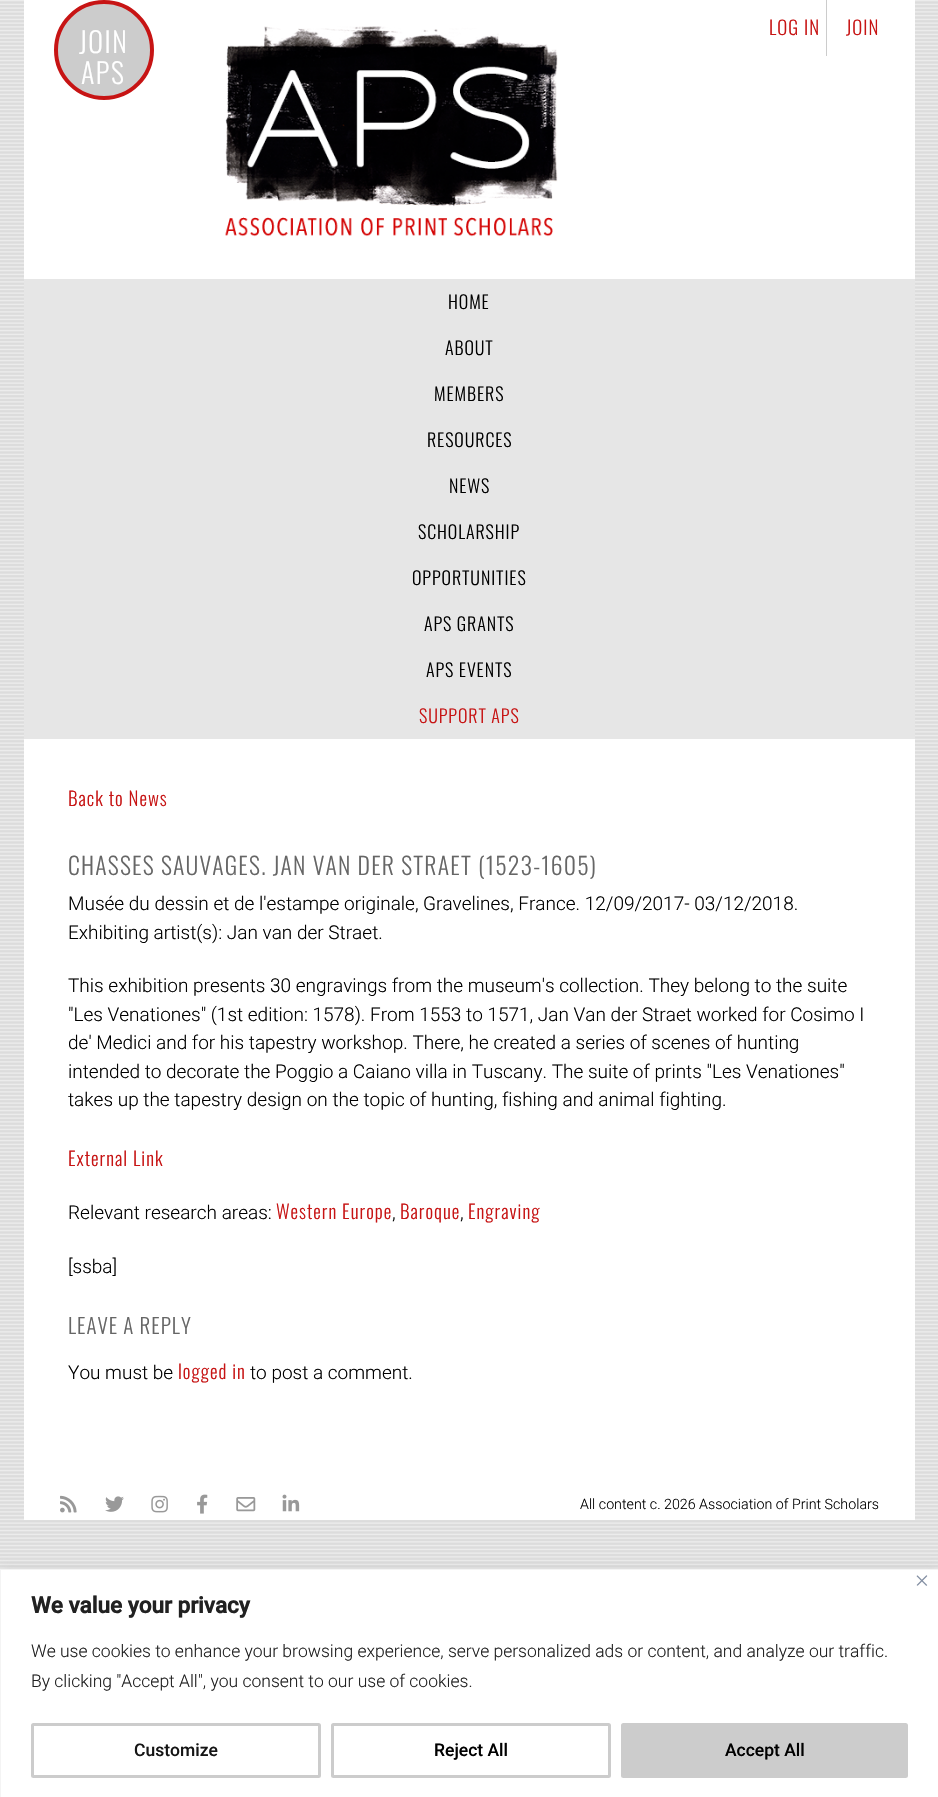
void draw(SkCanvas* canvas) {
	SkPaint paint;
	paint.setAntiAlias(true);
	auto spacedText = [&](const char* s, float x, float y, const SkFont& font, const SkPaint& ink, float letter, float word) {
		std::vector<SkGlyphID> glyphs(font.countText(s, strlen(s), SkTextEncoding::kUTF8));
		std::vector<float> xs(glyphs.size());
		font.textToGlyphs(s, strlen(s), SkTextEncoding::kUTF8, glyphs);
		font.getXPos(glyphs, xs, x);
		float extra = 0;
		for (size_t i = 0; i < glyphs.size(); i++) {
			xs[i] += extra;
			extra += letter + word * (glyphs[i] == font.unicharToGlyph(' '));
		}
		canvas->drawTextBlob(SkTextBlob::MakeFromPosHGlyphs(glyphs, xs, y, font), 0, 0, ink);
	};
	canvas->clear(0xffffffff);
	canvas->drawImageRect(SkImages::DeferredFromEncodedData(SkData::MakeFromFileName("img1.png")), SkRect::MakeXYWH(0, 0, 938, 1569), SkSamplingOptions());
	paint.setColor(0xffffffff);
	canvas->drawRect(SkRect::MakeXYWH(24, 0, 891, 1520), paint);
	paint.setColor(0xffcccccc);
	canvas->drawCircle(104, 50, 48, paint);
	paint.setStroke(true);
	paint.setStrokeWidth(4);
	paint.setColor(0xffc71414);
	canvas->drawCircle(104, 50, 48, paint);
	SkFont f1(fontMgr->matchFamilyStyle("Oswald", SkFontStyle(300, SkFontStyle::kNormal_Width, SkFontStyle::kUpright_Slant)), 28);
	f1.setSubpixel(true);
	paint.setStroke(false);
	paint.setColor(0xffffffff);
	spacedText("JOIN", 79, 53, f1, paint, 1.5, 0);
	spacedText("APS", 81, 84, f1, paint, 1.5, 0);
	canvas->drawImageRect(SkImages::DeferredFromEncodedData(SkData::MakeFromFileName("img2.png")), SkRect::MakeXYWH(225, 26, 333, 211), SkSamplingOptions());
	paint.setColor(0xffcccccc);
	canvas->drawRect(SkRect::MakeXYWH(826, 0, 1, 56), paint);
	SkFont f2(fontMgr->matchFamilyStyle("Oswald", SkFontStyle(300, SkFontStyle::kNormal_Width, SkFontStyle::kUpright_Slant)), 19);
	f2.setSubpixel(true);
	paint.setColor(0xffc71414);
	spacedText("LOG IN", 769, 35, f2, paint, 1, 0);
	spacedText("JOIN", 846, 35, f2, paint, 1, 0);
	paint.setColor(0xffe6e6e6);
	canvas->drawRect(SkRect::MakeXYWH(24, 279, 891, 460), paint);
	SkFont f3(fontMgr->matchFamilyStyle("Oswald", SkFontStyle(300, SkFontStyle::kNormal_Width, SkFontStyle::kUpright_Slant)), 18);
	f3.setSubpixel(true);
	paint.setColor(0xff000000);
	spacedText("HOME", 448, 309, f3, paint, 0.9, 0);
	spacedText("ABOUT", 445, 355, f3, paint, 0.9, 0);
	spacedText("MEMBERS", 434, 401, f3, paint, 0.9, 0);
	spacedText("RESOURCES", 427, 447, f3, paint, 0.9, 0);
	spacedText("NEWS", 449, 493, f3, paint, 0.9, 0);
	spacedText("SCHOLARSHIP", 418, 539, f3, paint, 0.9, 0);
	spacedText("OPPORTUNITIES", 412, 585, f3, paint, 0.9, 0);
	spacedText("APS GRANTS", 424, 631, f3, paint, 0.9, 0);
	spacedText("APS EVENTS", 426, 677, f3, paint, 0.9, 0);
	paint.setColor(0xffc71414);
	spacedText("SUPPORT APS", 419, 723, f3, paint, 0.9, 0);
	spacedText("Back to News", 68, 806, f2, paint, 1, 0);
	SkFont f4(fontMgr->matchFamilyStyle("Oswald", SkFontStyle(300, SkFontStyle::kNormal_Width, SkFontStyle::kUpright_Slant)), 23.75);
	f4.setSubpixel(true);
	paint.setColor(0xff666666);
	spacedText("CHASSES SAUVAGES. JAN VAN DER STRAET (1523-1605)", 68, 875, f4, paint, 1.2, 0);
	SkFont f5(fontMgr->matchFamilyStyle("Roboto", SkFontStyle(300, SkFontStyle::kNormal_Width, SkFontStyle::kUpright_Slant)), 19);
	f5.setSubpixel(true);
	paint.setColor(0xff000000);
	canvas->drawString("Musée du dessin et de l'estampe originale,", 68, 910, f5, paint);
	canvas->drawString("Gravelines, France. 12/09/2017- 03/12/2018.", 423, 910, f5, paint);
	canvas->drawString("Exhibiting artist(s): Jan van der Straet.", 68, 939, f5, paint);
	canvas->drawString("This exhibition presents 30 engravings from the museum's collection. They belong to the suite", 68, 992, f5, paint);
	canvas->drawString("\"Les Venationes\" (1st edition: 1578). From 1553 to 1571, Jan Van der Straet worked for Cosimo I", 68, 1021, f5, paint);
	canvas->drawString("de' Medici and for his tapestry workshop. There, he created a series of scenes of hunting", 68, 1049, f5, paint);
	canvas->drawString("intended to decorate the Poggio a Caiano villa in Tuscany. The suite of prints \"Les Venationes\"", 68, 1078, f5, paint);
	canvas->drawString("takes up the tapestry design on the topic of hunting, fishing and animal fighting.", 68, 1106, f5, paint);
	paint.setColor(0xffc71414);
	spacedText("External Link", 68, 1166, f2, paint, 1, 0);
	paint.setColor(0xff000000);
	canvas->drawString("Relevant research areas:", 68, 1219, f5, paint);
	paint.setColor(0xffc71414);
	spacedText("Western Europe", 276, 1219, f2, paint, 1, 0);
	paint.setColor(0xff000000);
	canvas->drawString(",", 392, 1219, f5, paint);
	paint.setColor(0xffc71414);
	spacedText("Baroque", 400, 1219, f2, paint, 1, 0);
	paint.setColor(0xff000000);
	canvas->drawString(",", 460, 1219, f5, paint);
	paint.setColor(0xffc71414);
	spacedText("Engraving", 468, 1219, f2, paint, 1, 0);
	paint.setColor(0xff000000);
	canvas->drawString("[ssba]", 68, 1273, f5, paint);
	SkFont f6(fontMgr->matchFamilyStyle("Oswald", SkFontStyle(300, SkFontStyle::kNormal_Width, SkFontStyle::kUpright_Slant)), 21);
	f6.setSubpixel(true);
	paint.setColor(0xff666666);
	spacedText("LEAVE A REPLY", 68, 1334, f6, paint, 1, 0);
	paint.setColor(0xff000000);
	canvas->drawString("You must be", 68, 1379, f5, paint);
	paint.setColor(0xffc71414);
	spacedText("logged in", 178, 1379, f2, paint, 1, 0);
	paint.setColor(0xff000000);
	canvas->drawString("to post a comment.", 250, 1379, f5, paint);
	canvas->drawImageRect(SkImages::DeferredFromEncodedData(SkData::MakeFromFileName("img3.png")), SkRect::MakeXYWH(60, 1495, 17, 18), SkSamplingOptions());
	canvas->drawImageRect(SkImages::DeferredFromEncodedData(SkData::MakeFromFileName("img4.png")), SkRect::MakeXYWH(105, 1496, 19, 16), SkSamplingOptions());
	canvas->drawImageRect(SkImages::DeferredFromEncodedData(SkData::MakeFromFileName("img5.png")), SkRect::MakeXYWH(151, 1495, 17, 18), SkSamplingOptions());
	canvas->drawImageRect(SkImages::DeferredFromEncodedData(SkData::MakeFromFileName("img6.png")), SkRect::MakeXYWH(197, 1494, 11, 20), SkSamplingOptions());
	canvas->drawImageRect(SkImages::DeferredFromEncodedData(SkData::MakeFromFileName("img7.png")), SkRect::MakeXYWH(236, 1497, 20, 15), SkSamplingOptions());
	canvas->drawImageRect(SkImages::DeferredFromEncodedData(SkData::MakeFromFileName("img8.png")), SkRect::MakeXYWH(282, 1494, 18, 18), SkSamplingOptions());
	SkFont f7(fontMgr->matchFamilyStyle("Roboto", SkFontStyle(300, SkFontStyle::kNormal_Width, SkFontStyle::kUpright_Slant)), 14.25);
	f7.setSubpixel(true);
	canvas->drawString("All content c. 2026 Association of Print Scholars", 580, 1509, f7, paint);
	paint.setColor(0x4dacabab);
	paint.setMaskFilter(SkMaskFilter::MakeBlur(kNormal_SkBlurStyle, 6));
	canvas->drawRect(SkRect::MakeXYWH(0, 1568, 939, 228), paint);
	paint.setMaskFilter(nullptr);
	paint.setColor(0xffffffff);
	canvas->drawRect(SkRect::MakeXYWH(0.5, 1569.5, 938, 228), paint);
	paint.setStroke(true);
	paint.setStrokeWidth(1);
	paint.setColor(0xfff4f4f4);
	canvas->drawRect(SkRect::MakeXYWH(0.5, 1569.5, 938, 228), paint);
	canvas->drawImageRect(SkImages::DeferredFromEncodedData(SkData::MakeFromFileName("img9.png")), SkRect::MakeXYWH(916, 1575, 12, 11), SkSamplingOptions());
	SkFont f8(fontMgr->matchFamilyStyle("Roboto", SkFontStyle::Bold()), 22.5);
	f8.setSubpixel(true);
	paint.setStroke(false);
	paint.setColor(0xff212121);
	canvas->drawString("We value your privacy", 31, 1613, f8, paint);
	SkFont f9(fontMgr->matchFamilyStyle("Roboto", SkFontStyle(300, SkFontStyle::kNormal_Width, SkFontStyle::kUpright_Slant)), 17.5);
	f9.setSubpixel(true);
	canvas->drawString("We use cookies to enhance your browsing experience, serve personalized ads or content, and analyze our traffic.", 31, 1657, f9, paint);
	canvas->drawString("By clicking \"Accept All\", you consent to our use of cookies.", 31, 1687, f9, paint);
	paint.setStroke(true);
	paint.setStrokeWidth(3);
	paint.setColor(0xffcccccc);
	canvas->drawRoundRect(SkRect::MakeXYWH(32.5, 1724.5, 287, 52), 1, 1, paint);
	SkFont f10(fontMgr->matchFamilyStyle("Roboto", SkFontStyle(500, SkFontStyle::kNormal_Width, SkFontStyle::kUpright_Slant)), 17.5);
	f10.setSubpixel(true);
	paint.setStroke(false);
	paint.setColor(0xff151515);
	canvas->drawString("Customize", 134, 1756, f10, paint);
	paint.setStroke(true);
	paint.setColor(0xffcccccc);
	canvas->drawRoundRect(SkRect::MakeXYWH(332.5, 1724.5, 277, 52), 1, 1, paint);
	paint.setStroke(false);
	paint.setColor(0xff000000);
	canvas->drawString("Reject All", 434, 1756, f10, paint);
	paint.setColor(0xffcccccc);
	canvas->drawRoundRect(SkRect::MakeXYWH(622.5, 1724.5, 284, 52), 1, 1, paint);
	paint.setStroke(true);
	canvas->drawRoundRect(SkRect::MakeXYWH(622.5, 1724.5, 284, 52), 1, 1, paint);
	paint.setStroke(false);
	paint.setColor(0xff000000);
	canvas->drawString("Accept All", 725, 1756, f10, paint);
}
